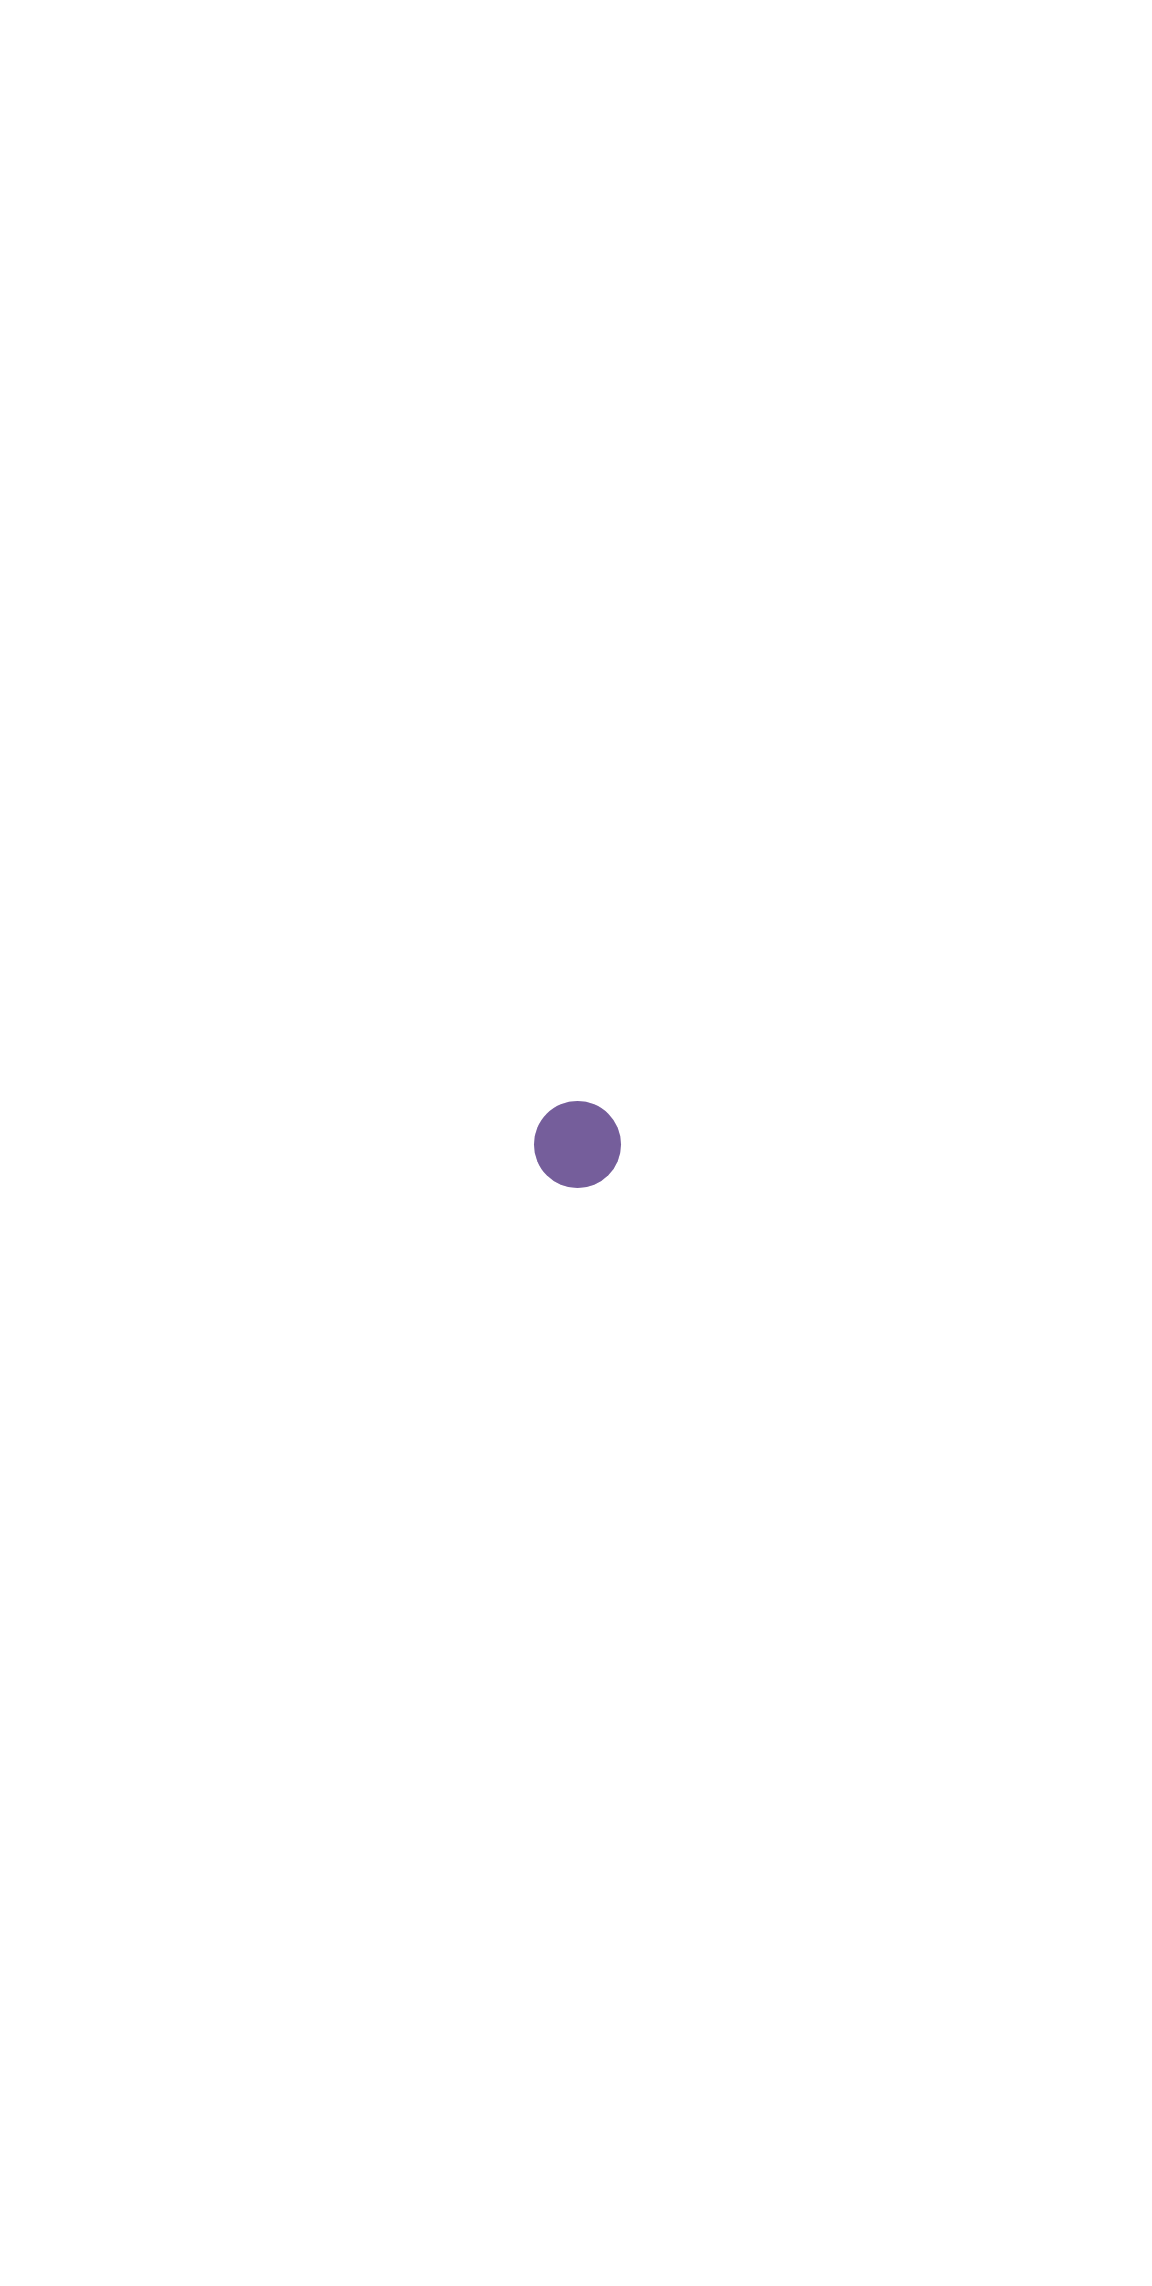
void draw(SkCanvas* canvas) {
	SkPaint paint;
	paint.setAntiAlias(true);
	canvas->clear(0xffffffff);
	paint.setColor(0xffa394bd);
	canvas->drawCircle(577.5, 1144.5, 43.5, paint);
	paint.setColor(0x8047287a);
	canvas->drawCircle(577.5, 1144.5, 43.5, paint);
}
